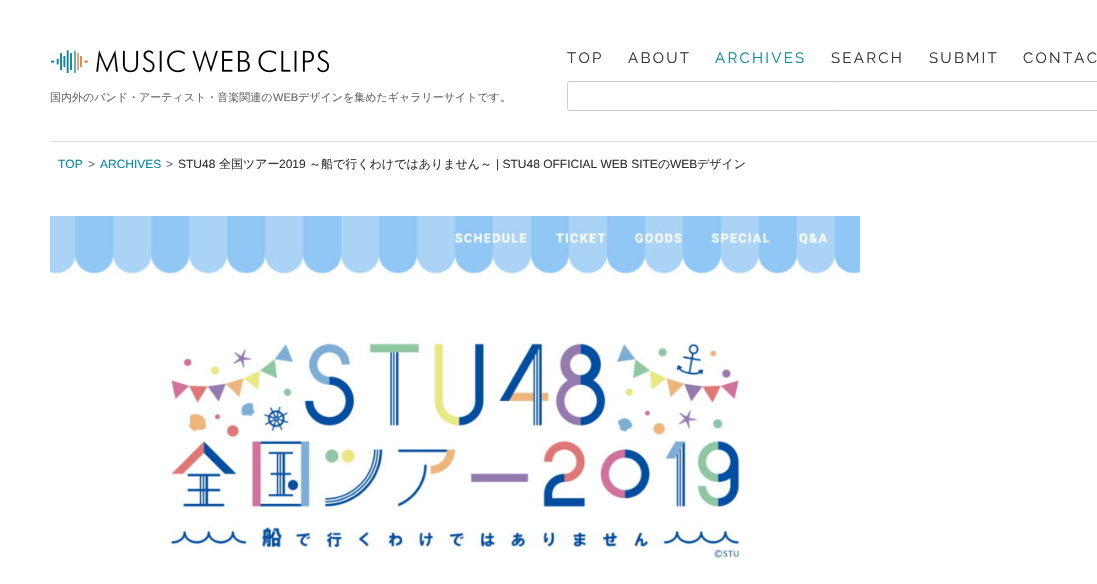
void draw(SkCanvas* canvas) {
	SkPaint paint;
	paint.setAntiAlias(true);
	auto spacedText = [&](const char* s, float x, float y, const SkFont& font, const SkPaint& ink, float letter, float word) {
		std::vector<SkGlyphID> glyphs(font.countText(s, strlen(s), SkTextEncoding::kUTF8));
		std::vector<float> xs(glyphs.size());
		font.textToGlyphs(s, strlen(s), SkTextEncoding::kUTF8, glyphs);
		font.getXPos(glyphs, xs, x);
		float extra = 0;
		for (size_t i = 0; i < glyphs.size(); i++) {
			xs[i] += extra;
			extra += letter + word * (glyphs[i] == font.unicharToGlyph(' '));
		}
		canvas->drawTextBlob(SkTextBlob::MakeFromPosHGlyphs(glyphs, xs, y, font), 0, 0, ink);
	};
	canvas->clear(0xffffffff);
	paint.setColor(0xffdddddd);
	canvas->drawRect(SkRect::MakeXYWH(50, 141, 1047, 1), paint);
	SkFont f1(fontMgr->matchFamilyStyle("Raleway", SkFontStyle::Normal()), 15);
	f1.setSubpixel(true);
	paint.setColor(0xff333333);
	spacedText("TOP", 567, 63, f1, paint, 2.25, 0);
	spacedText("ABOUT", 628, 63, f1, paint, 2.25, 0);
	paint.setColor(0xff07889b);
	spacedText("ARCHIVES", 715, 63, f1, paint, 2.25, 0);
	paint.setColor(0xff333333);
	spacedText("SEARCH", 831, 63, f1, paint, 2.25, 0);
	spacedText("SUBMIT", 929, 63, f1, paint, 2.25, 0);
	spacedText("CONTAC", 1023, 63, f1, paint, 2.25, 0);
	paint.setStroke(true);
	paint.setStrokeWidth(1);
	paint.setColor(0xffcccccc);
	canvas->drawRoundRect(SkRect::MakeXYWH(567.5, 81.5, 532, 29), 1.5, 1.5, paint);
	canvas->drawImageRect(SkImages::DeferredFromEncodedData(SkData::MakeFromFileName("img1.png")), SkRect::MakeXYWH(51, 50, 278, 23), SkSamplingOptions());
	SkFont f2(fontMgr->matchFamilyStyle("WenQuanYi Zen Hei", SkFontStyle(500, SkFontStyle::kNormal_Width, SkFontStyle::kUpright_Slant)), 11);
	f2.setSubpixel(true);
	paint.setStroke(false);
	paint.setColor(0xff666666);
	canvas->drawString("国内外のバンド・アーティスト・音楽関連の", 50, 101, f2, paint);
	SkFont f3(fontMgr->matchFamilyStyle("Liberation Sans", SkFontStyle::Normal()), 11);
	f3.setSubpixel(true);
	canvas->drawString("WEB", 273, 101, f3, paint);
	canvas->drawString("デザインを集めたギャラリーサイトです。", 298, 101, f2, paint);
	SkFont f4(fontMgr->matchFamilyStyle("Liberation Sans", SkFontStyle::Normal()), 12);
	f4.setSubpixel(true);
	paint.setColor(0xff07889b);
	canvas->drawString("TOP", 58, 168, f4, paint);
	paint.setColor(0xff666666);
	canvas->drawString(">", 88, 168, f4, paint);
	paint.setColor(0xff07889b);
	canvas->drawString("ARCHIVES", 100, 168, f4, paint);
	paint.setColor(0xff666666);
	canvas->drawString(">", 166, 168, f4, paint);
	paint.setColor(0xff333333);
	canvas->drawString("STU48", 178, 168, f4, paint);
	SkFont f5(fontMgr->matchFamilyStyle("WenQuanYi Zen Hei", SkFontStyle(500, SkFontStyle::kNormal_Width, SkFontStyle::kUpright_Slant)), 12);
	f5.setSubpixel(true);
	canvas->drawString("全国ツアー", 219, 168, f5, paint);
	canvas->drawString("2019", 279, 168, f4, paint);
	canvas->drawString("～船で行くわけではありません～", 309, 168, f5, paint);
	canvas->drawString("| STU48 OFFICIAL WEB SITE", 496, 168, f4, paint);
	canvas->drawString("の", 658, 168, f5, paint);
	canvas->drawString("WEB", 670, 168, f4, paint);
	canvas->drawString("デザイン", 697, 168, f5, paint);
	canvas->drawImageRect(SkImages::DeferredFromEncodedData(SkData::MakeFromFileName("img2.png")), SkRect::MakeXYWH(50, 216, 810, 345), SkSamplingOptions());
}
